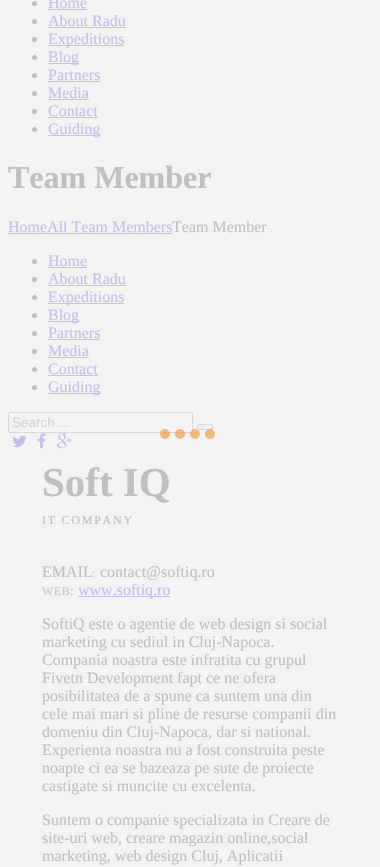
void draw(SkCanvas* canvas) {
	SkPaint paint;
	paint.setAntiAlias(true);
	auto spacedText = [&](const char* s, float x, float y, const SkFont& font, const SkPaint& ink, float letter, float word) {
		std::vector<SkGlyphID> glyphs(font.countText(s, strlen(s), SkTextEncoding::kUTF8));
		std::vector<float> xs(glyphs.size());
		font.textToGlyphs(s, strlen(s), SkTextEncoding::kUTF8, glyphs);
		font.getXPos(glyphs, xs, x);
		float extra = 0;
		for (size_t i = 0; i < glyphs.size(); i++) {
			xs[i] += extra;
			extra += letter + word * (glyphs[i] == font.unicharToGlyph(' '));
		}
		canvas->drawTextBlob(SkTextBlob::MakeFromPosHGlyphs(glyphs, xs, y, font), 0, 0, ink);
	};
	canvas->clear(0xfff3f3f3);
	paint.setColor(0xffc0c0c0);
	canvas->drawCircle(34.5, 3.5, 2.5, paint);
	SkFont f1(fontMgr->matchFamilyStyle("Liberation Serif", SkFontStyle::Normal()), 16);
	f1.setSubpixel(true);
	paint.setColor(0xffc0c0f0);
	canvas->drawString("Home", 48, 8, f1, paint);
	canvas->drawRect(SkRect::MakeXYWH(48, 9, 39, 1), paint);
	paint.setColor(0xffc0c0c0);
	canvas->drawCircle(34.5, 21.5, 2.5, paint);
	paint.setColor(0xffc0c0f0);
	canvas->drawString("About Radu", 48, 26, f1, paint);
	canvas->drawRect(SkRect::MakeXYWH(48, 27, 78, 1), paint);
	paint.setColor(0xffc0c0c0);
	canvas->drawCircle(34.5, 39.5, 2.5, paint);
	paint.setColor(0xffc0c0f0);
	canvas->drawRect(SkRect::MakeXYWH(48, 45, 76, 1), paint);
	canvas->drawString("Expeditions", 48, 44, f1, paint);
	paint.setColor(0xffc0c0c0);
	canvas->drawCircle(34.5, 57.5, 2.5, paint);
	paint.setColor(0xffc0c0f0);
	canvas->drawRect(SkRect::MakeXYWH(48, 63, 31, 1), paint);
	canvas->drawString("Blog", 48, 62, f1, paint);
	paint.setColor(0xffc0c0c0);
	canvas->drawCircle(34.5, 75.5, 2.5, paint);
	paint.setColor(0xffc0c0f0);
	canvas->drawString("Partners", 48, 80, f1, paint);
	canvas->drawRect(SkRect::MakeXYWH(48, 81, 52, 1), paint);
	paint.setColor(0xffc0c0c0);
	canvas->drawCircle(34.5, 93.5, 2.5, paint);
	paint.setColor(0xffc0c0f0);
	canvas->drawString("Media", 48, 98, f1, paint);
	canvas->drawRect(SkRect::MakeXYWH(48, 99, 41, 1), paint);
	paint.setColor(0xffc0c0c0);
	canvas->drawCircle(34.5, 111.5, 2.5, paint);
	paint.setColor(0xffc0c0f0);
	canvas->drawString("Contact", 48, 116, f1, paint);
	canvas->drawRect(SkRect::MakeXYWH(48, 117, 50, 1), paint);
	paint.setColor(0xffc0c0c0);
	canvas->drawCircle(34.5, 129.5, 2.5, paint);
	paint.setColor(0xffc0c0f0);
	canvas->drawRect(SkRect::MakeXYWH(48, 135, 52, 1), paint);
	canvas->drawString("Guiding", 48, 134, f1, paint);
	SkFont f2(fontMgr->matchFamilyStyle("Liberation Serif", SkFontStyle::Bold()), 32);
	f2.setSubpixel(true);
	paint.setColor(0xffc0c0c0);
	canvas->drawString("Team Member", 8, 188, f2, paint);
	paint.setColor(0xffc0c0f0);
	canvas->drawString("HomeAll Team Members", 8, 232, f1, paint);
	canvas->drawRect(SkRect::MakeXYWH(8, 233, 164, 1), paint);
	paint.setColor(0xffc0c0c0);
	canvas->drawString("Team Member", 172, 232, f1, paint);
	canvas->drawCircle(34.5, 261.5, 2.5, paint);
	paint.setColor(0xffc0c0f0);
	canvas->drawString("Home", 48, 266, f1, paint);
	canvas->drawRect(SkRect::MakeXYWH(48, 267, 39, 1), paint);
	paint.setColor(0xffc0c0c0);
	canvas->drawCircle(34.5, 279.5, 2.5, paint);
	paint.setColor(0xffc0c0f0);
	canvas->drawString("About Radu", 48, 284, f1, paint);
	canvas->drawRect(SkRect::MakeXYWH(48, 285, 78, 1), paint);
	paint.setColor(0xffc0c0c0);
	canvas->drawCircle(34.5, 297.5, 2.5, paint);
	paint.setColor(0xffc0c0f0);
	canvas->drawRect(SkRect::MakeXYWH(48, 303, 76, 1), paint);
	canvas->drawString("Expeditions", 48, 302, f1, paint);
	paint.setColor(0xffc0c0c0);
	canvas->drawCircle(34.5, 315.5, 2.5, paint);
	paint.setColor(0xffc0c0f0);
	canvas->drawRect(SkRect::MakeXYWH(48, 321, 31, 1), paint);
	canvas->drawString("Blog", 48, 320, f1, paint);
	paint.setColor(0xffc0c0c0);
	canvas->drawCircle(34.5, 333.5, 2.5, paint);
	paint.setColor(0xffc0c0f0);
	canvas->drawString("Partners", 48, 338, f1, paint);
	canvas->drawRect(SkRect::MakeXYWH(48, 339, 52, 1), paint);
	paint.setColor(0xffc0c0c0);
	canvas->drawCircle(34.5, 351.5, 2.5, paint);
	paint.setColor(0xffc0c0f0);
	canvas->drawString("Media", 48, 356, f1, paint);
	canvas->drawRect(SkRect::MakeXYWH(48, 357, 41, 1), paint);
	paint.setColor(0xffc0c0c0);
	canvas->drawCircle(34.5, 369.5, 2.5, paint);
	paint.setColor(0xffc0c0f0);
	canvas->drawString("Contact", 48, 374, f1, paint);
	canvas->drawRect(SkRect::MakeXYWH(48, 375, 50, 1), paint);
	paint.setColor(0xffc0c0c0);
	canvas->drawCircle(34.5, 387.5, 2.5, paint);
	paint.setColor(0xffc0c0f0);
	canvas->drawRect(SkRect::MakeXYWH(48, 393, 52, 1), paint);
	canvas->drawString("Guiding", 48, 392, f1, paint);
	paint.setStroke(true);
	paint.setStrokeWidth(1);
	paint.setColor(0xffd8d8d8);
	canvas->drawRoundRect(SkRect::MakeXYWH(8.5, 412.5, 184, 20), 1.5, 1.5, paint);
	SkFont f3(fontMgr->matchFamilyStyle("Liberation Sans", SkFontStyle::Normal()), 13.5);
	f3.setSubpixel(true);
	paint.setStroke(false);
	paint.setColor(0xffd7d7d7);
	canvas->drawString("Search ...", 12, 427, f3, paint);
	paint.setColor(0xfff0f0f0);
	canvas->drawRoundRect(SkRect::MakeXYWH(197.5, 424.5, 15, 5), 1.5, 1.5, paint);
	paint.setStroke(true);
	paint.setColor(0xffd8d8d8);
	canvas->drawRoundRect(SkRect::MakeXYWH(197.5, 424.5, 15, 5), 1.5, 1.5, paint);
	canvas->drawImageRect(SkImages::DeferredFromEncodedData(SkData::MakeFromFileName("img1.png")), SkRect::MakeXYWH(12, 435, 15, 13), SkSamplingOptions());
	canvas->drawImageRect(SkImages::DeferredFromEncodedData(SkData::MakeFromFileName("img2.png")), SkRect::MakeXYWH(37, 433, 9, 16), SkSamplingOptions());
	canvas->drawImageRect(SkImages::DeferredFromEncodedData(SkData::MakeFromFileName("img3.png")), SkRect::MakeXYWH(57, 433, 15, 16), SkSamplingOptions());
	SkFont f4(fontMgr->matchFamilyStyle("Liberation Serif", SkFontStyle::Bold()), 41);
	f4.setSubpixel(true);
	paint.setStroke(false);
	paint.setColor(0xffc0c0c0);
	canvas->drawString("Soft IQ", 42, 496, f4, paint);
	SkFont f5(fontMgr->matchFamilyStyle("Liberation Serif", SkFontStyle::Normal()), 12);
	f5.setSubpixel(true);
	spacedText("IT COMPANY", 42, 524, f5, paint, 1.75, 0);
	canvas->drawString("EMAIL", 42, 577, f1, paint);
	paint.setColor(0xffc9c9ca);
	spacedText(":", 92, 577, f5, paint, 0.5, 0);
	paint.setColor(0xffc0c0c0);
	canvas->drawString("contact@softiq.ro", 100, 577, f1, paint);
	paint.setColor(0xffc9c9ca);
	spacedText("WEB:", 42, 595, f5, paint, 0.5, 0);
	paint.setColor(0xffc0c0f0);
	canvas->drawRect(SkRect::MakeXYWH(78, 596, 92, 1), paint);
	canvas->drawString("www.softiq.ro", 78, 595, f1, paint);
	paint.setColor(0xffc0c0c0);
	canvas->drawString("SoftiQ este o agentie de web design si social", 42, 629, f1, paint);
	canvas->drawString("marketing cu sediul in Cluj-Napoca.", 42, 647, f1, paint);
	canvas->drawString("Compania noastra este infratita cu grupul", 42, 665, f1, paint);
	canvas->drawString("Fivetn Development fapt ce ne ofera", 42, 683, f1, paint);
	canvas->drawString("posibilitatea de a spune ca suntem una din", 42, 701, f1, paint);
	canvas->drawString("cele mai mari si pline de resurse companii din", 42, 719, f1, paint);
	canvas->drawString("domeniu din Cluj-Napoca, dar si national.", 42, 737, f1, paint);
	canvas->drawString("Experienta noastra nu a fost construita peste", 42, 755, f1, paint);
	canvas->drawString("noapte ci ea se bazeaza pe sute de proiecte", 42, 773, f1, paint);
	canvas->drawString("castigate si muncite cu excelenta.", 42, 791, f1, paint);
	canvas->drawString("Suntem o companie specializata in Creare de", 42, 825, f1, paint);
	canvas->drawString("site-uri web, creare magazin online,social", 42, 843, f1, paint);
	canvas->drawString("marketing, web design Cluj, Aplicatii", 42, 861, f1, paint);
	paint.setColor(0xccefa758);
	canvas->drawCircle(165, 434, 5, paint);
	canvas->drawCircle(180, 434, 5, paint);
	canvas->drawCircle(195, 434, 5, paint);
	canvas->drawCircle(210, 434, 5, paint);
}
